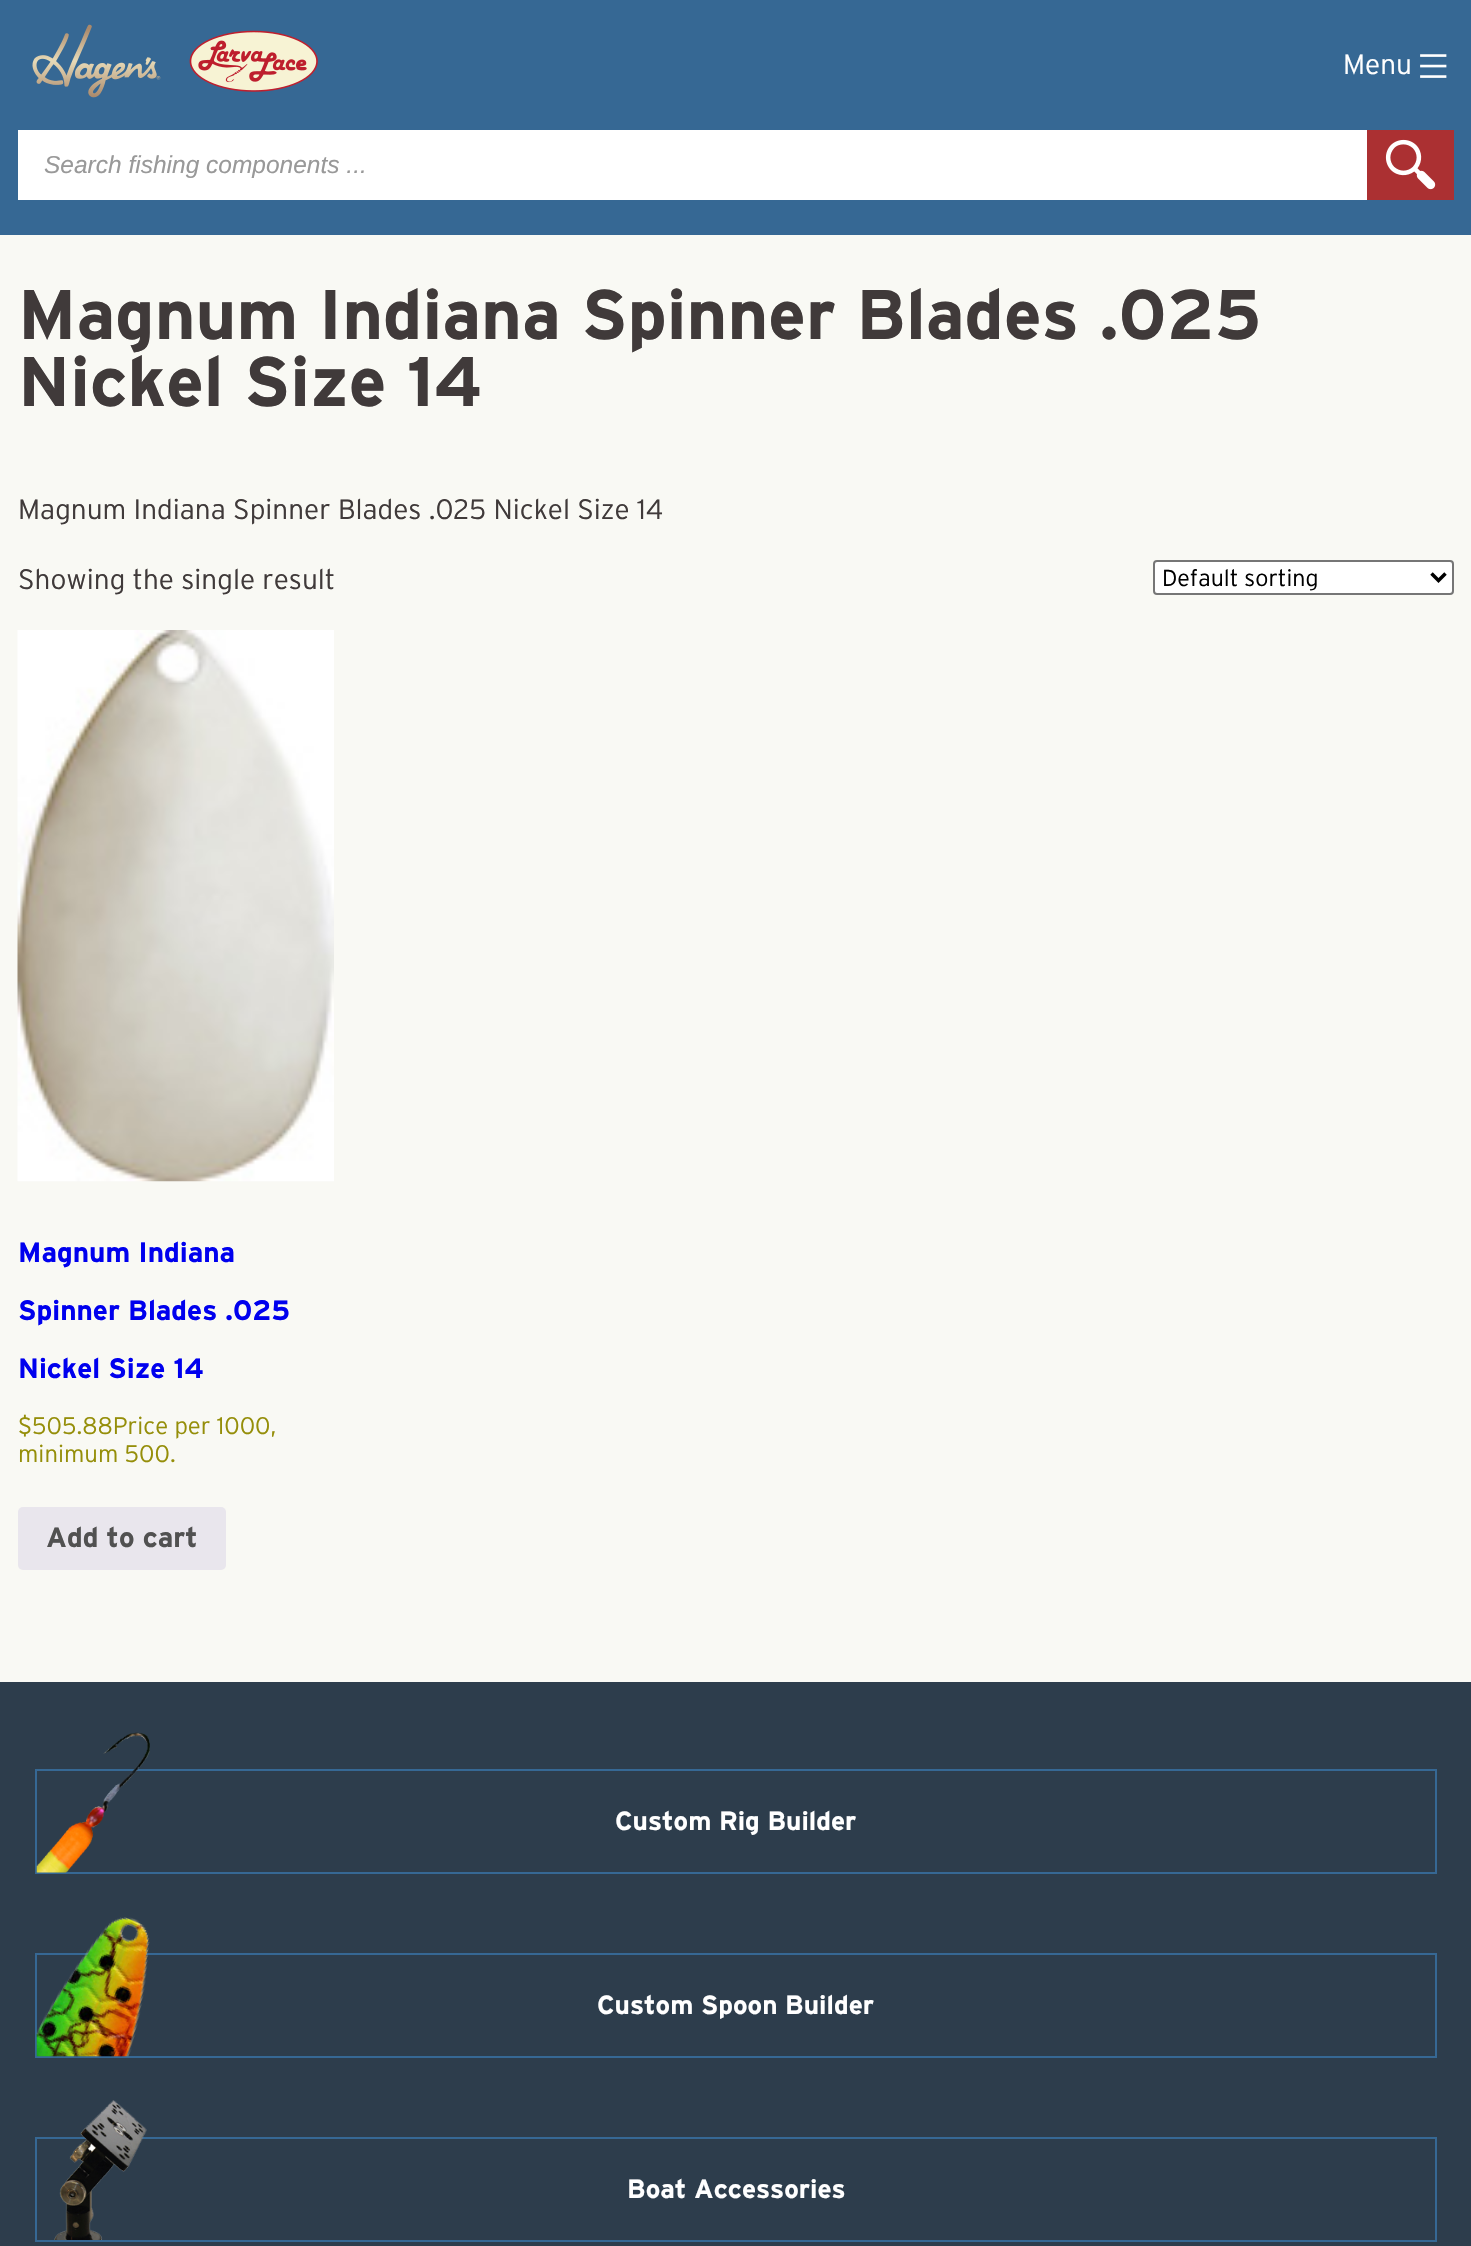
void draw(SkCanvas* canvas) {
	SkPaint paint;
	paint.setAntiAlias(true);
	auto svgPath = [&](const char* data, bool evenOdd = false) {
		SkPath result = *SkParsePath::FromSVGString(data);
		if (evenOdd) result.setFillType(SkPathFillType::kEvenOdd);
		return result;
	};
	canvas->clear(0xff366894);
	canvas->drawImageRect(SkImages::DeferredFromEncodedData(SkData::MakeFromFileName("img1.png")), SkRect::MakeXYWH(32, 24, 129, 74), SkSamplingOptions());
	canvas->drawImageRect(SkImages::DeferredFromEncodedData(SkData::MakeFromFileName("img2.png")), SkRect::MakeXYWH(189, 30, 129, 62), SkSamplingOptions());
	SkFont f1(fontMgr->matchFamilyStyle("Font", SkFontStyle(300, SkFontStyle::kNormal_Width, SkFontStyle::kUpright_Slant)), 28);
	f1.setSubpixel(true);
	paint.setColor(0xffffffff);
	canvas->drawString("Menu", 1343, 74, f1, paint);
	canvas->drawImageRect(SkImages::DeferredFromEncodedData(SkData::MakeFromFileName("img3.png")), SkRect::MakeXYWH(1420, 54, 27, 24), SkSamplingOptions());
	canvas->drawRect(SkRect::MakeXYWH(18, 130, 1349, 70), paint);
	SkFont f2(fontMgr->matchFamilyStyle("Liberation Sans", SkFontStyle::Italic()), 24.5);
	f2.setSubpixel(true);
	paint.setColor(0xff999999);
	canvas->drawString("Search fishing components ...", 44, 173, f2, paint);
	paint.setColor(0xffab3032);
	canvas->drawRect(SkRect::MakeXYWH(1367, 130, 87, 70), paint);
	canvas->drawImageRect(SkImages::DeferredFromEncodedData(SkData::MakeFromFileName("img4.png")), SkRect::MakeXYWH(1385, 139, 51, 51), SkSamplingOptions());
	paint.setColor(0xfff9f9f4);
	canvas->drawRect(SkRect::MakeXYWH(0, 235, 1471, 1447), paint);
	SkFont f3(fontMgr->matchFamilyStyle("Font", SkFontStyle::Bold()), 70);
	f3.setSubpixel(true);
	paint.setColor(0xff403a3a);
	canvas->drawString("Magnum Indiana Spinner Blades .025", 18, 339, f3, paint);
	canvas->drawString("Nickel Size 14", 18, 406, f3, paint);
	canvas->drawString("Magnum Indiana Spinner Blades .025 Nickel Size 14", 18, 519, f1, paint);
	canvas->drawString("Showing the single result", 18, 589, f1, paint);
	paint.setColor(0xffffffff);
	canvas->drawRoundRect(SkRect::MakeXYWH(1154, 561, 299, 33), 3, 3, paint);
	paint.setStroke(true);
	paint.setStrokeWidth(2);
	paint.setColor(0xff767676);
	canvas->drawRoundRect(SkRect::MakeXYWH(1154, 561, 299, 33), 3, 3, paint);
	paint.setStrokeWidth(3.5);
	paint.setColor(0xff000000);
	canvas->drawPath(svgPath("M1431.5 573.5L1438.5 580.5L1445.5 573.5"), paint);
	SkFont f4(fontMgr->matchFamilyStyle("Font", SkFontStyle(300, SkFontStyle::kNormal_Width, SkFontStyle::kUpright_Slant)), 23.25);
	f4.setSubpixel(true);
	paint.setStroke(false);
	canvas->drawString("Default sorting", 1162, 586, f4, paint);
	canvas->drawImageRect(SkImages::DeferredFromEncodedData(SkData::MakeFromFileName("img5.png")), SkRect::MakeXYWH(17, 630, 317, 552), SkSamplingOptions());
	SkFont f5(fontMgr->matchFamilyStyle("Font", SkFontStyle::Bold()), 28);
	f5.setSubpixel(true);
	paint.setColor(0xff0000ee);
	canvas->drawString("Magnum Indiana", 18, 1262, f5, paint);
	canvas->drawString("Spinner Blades .025", 18, 1320, f5, paint);
	canvas->drawString("Nickel Size 14", 18, 1378, f5, paint);
	SkFont f6(fontMgr->matchFamilyStyle("Font", SkFontStyle(300, SkFontStyle::kNormal_Width, SkFontStyle::kUpright_Slant)), 24);
	f6.setSubpixel(true);
	paint.setColor(0xff958e09);
	canvas->drawString("$505.88Price per 1000,", 18, 1434, f6, paint);
	canvas->drawString("minimum 500.", 18, 1462, f6, paint);
	paint.setColor(0xffe9e6ed);
	canvas->drawRoundRect(SkRect::MakeXYWH(18, 1507, 208, 63), 5, 5, paint);
	paint.setColor(0xff515151);
	canvas->drawString("Add to cart", 46, 1547, f5, paint);
	paint.setColor(0xff2d3d4c);
	canvas->drawRect(SkRect::MakeXYWH(0, 1682, 1471, 564), paint);
	paint.setStroke(true);
	paint.setStrokeWidth(2);
	paint.setColor(0xff366894);
	canvas->drawRect(SkRect::MakeXYWH(36, 1770, 1400, 103), paint);
	canvas->drawImageRect(SkImages::DeferredFromEncodedData(SkData::MakeFromFileName("img6.png")), SkRect::MakeXYWH(36, 1732, 114, 141), SkSamplingOptions());
	SkFont f7(fontMgr->matchFamilyStyle("Font", SkFontStyle::Bold()), 26.25);
	f7.setSubpixel(true);
	paint.setStroke(false);
	paint.setColor(0xffffffff);
	canvas->drawString("Custom Rig Builder", 615, 1830, f7, paint);
	paint.setStroke(true);
	paint.setColor(0xff366894);
	canvas->drawRect(SkRect::MakeXYWH(36, 1954, 1400, 103), paint);
	canvas->drawImageRect(SkImages::DeferredFromEncodedData(SkData::MakeFromFileName("img7.png")), SkRect::MakeXYWH(36, 1917, 114, 140), SkSamplingOptions());
	paint.setStroke(false);
	paint.setColor(0xffffffff);
	canvas->drawString("Custom Spoon Builder", 597, 2014, f7, paint);
	paint.setStroke(true);
	paint.setColor(0xff366894);
	canvas->drawRect(SkRect::MakeXYWH(36, 2138, 1400, 103), paint);
	canvas->drawImageRect(SkImages::DeferredFromEncodedData(SkData::MakeFromFileName("img8.png")), SkRect::MakeXYWH(54, 2100, 93, 140), SkSamplingOptions());
	paint.setStroke(false);
	paint.setColor(0xffffffff);
	canvas->drawString("Boat Accessories", 627, 2198, f7, paint);
}
